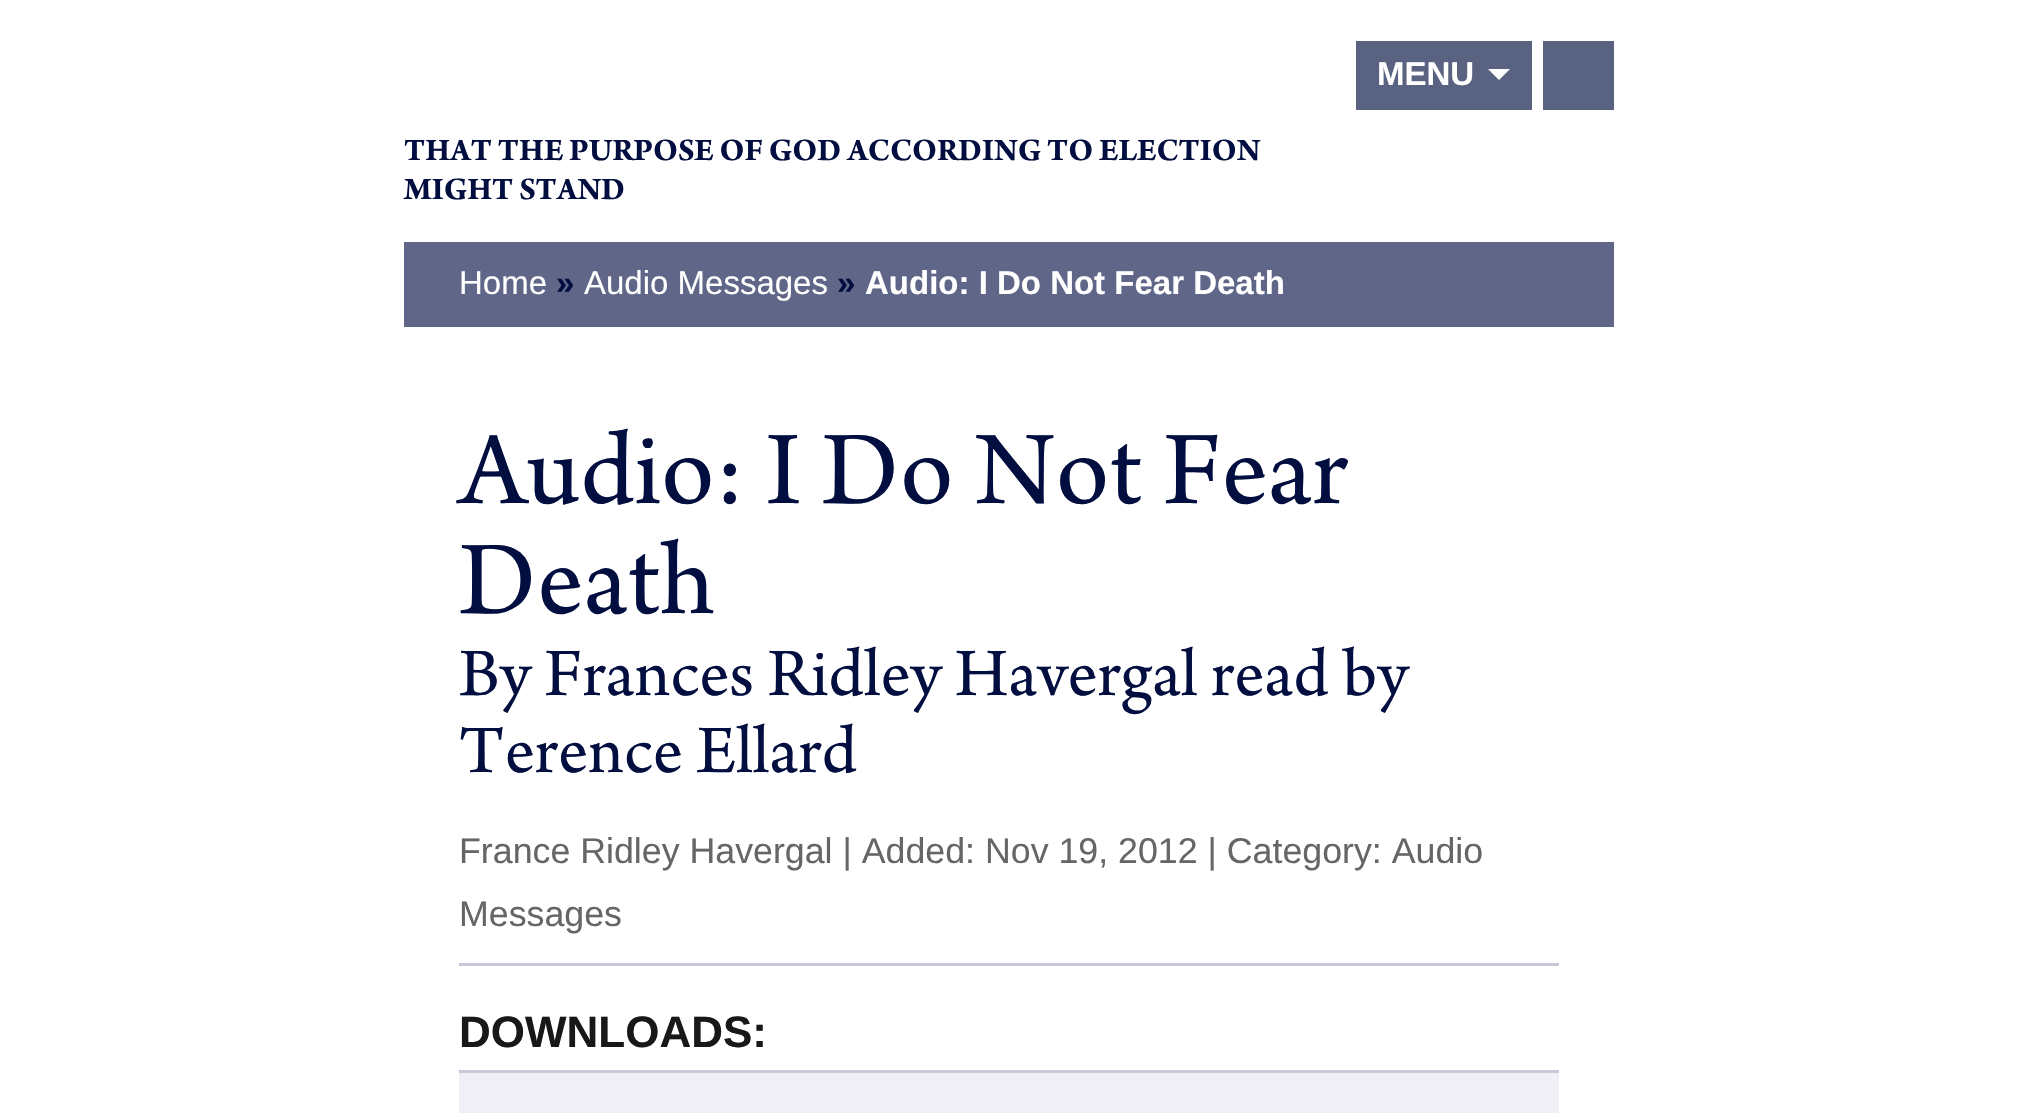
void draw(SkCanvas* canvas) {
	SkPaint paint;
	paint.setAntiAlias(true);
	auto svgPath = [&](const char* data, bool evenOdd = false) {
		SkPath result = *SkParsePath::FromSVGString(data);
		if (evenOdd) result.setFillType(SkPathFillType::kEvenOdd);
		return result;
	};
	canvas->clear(0xffffffff);
	paint.setColor(0xff5a6282);
	canvas->drawRect(SkRect::MakeXYWH(1356, 41, 176, 69), paint);
	SkFont f1(fontMgr->matchFamilyStyle("Liberation Sans", SkFontStyle::Bold()), 33);
	f1.setSubpixel(true);
	paint.setColor(0xffffffff);
	canvas->drawString("MENU", 1377, 85, f1, paint);
	canvas->drawPath(svgPath("M1488 69H1510L1499 80Z"), paint);
	paint.setColor(0xff5a6282);
	canvas->drawRect(SkRect::MakeXYWH(1543, 41, 71, 69), paint);
	SkFont f2(fontMgr->matchFamilyStyle("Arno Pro", SkFontStyle::Bold()), 33);
	f2.setSubpixel(true);
	paint.setColor(0xff010e3f);
	canvas->drawString("THAT THE PURPOSE OF GOD ACCORDING TO ELECTION", 404, 160, f2, paint);
	canvas->drawString("MIGHT STAND", 404, 199, f2, paint);
	paint.setColor(0xff5f6688);
	canvas->drawRect(SkRect::MakeXYWH(404, 242, 1210, 85), paint);
	SkFont f3(fontMgr->matchFamilyStyle("Liberation Sans", SkFontStyle::Normal()), 33);
	f3.setSubpixel(true);
	paint.setColor(0xffffffff);
	canvas->drawString("Home", 459, 294, f3, paint);
	paint.setColor(0xff010e3f);
	canvas->drawString("»", 556, 294, f1, paint);
	paint.setColor(0xffffffff);
	canvas->drawString("Audio Messages", 584, 294, f3, paint);
	paint.setColor(0xff010e3f);
	canvas->drawString("»", 837, 294, f1, paint);
	paint.setColor(0xffffffff);
	canvas->drawString("Audio: I Do Not Fear Death", 865, 294, f1, paint);
	paint.setColor(0xffcac7d8);
	canvas->drawRect(SkRect::MakeXYWH(459, 963, 1100, 3), paint);
	SkFont f4(fontMgr->matchFamilyStyle("Arno Pro", SkFontStyle::Normal()), 110);
	f4.setSubpixel(true);
	paint.setColor(0xff010e3f);
	canvas->drawString("Audio: I Do Not Fear", 459, 503, f4, paint);
	canvas->drawString("Death", 459, 613, f4, paint);
	SkFont f5(fontMgr->matchFamilyStyle("Arno Pro", SkFontStyle::Normal()), 71.5);
	f5.setSubpixel(true);
	canvas->drawString("By Frances Ridley Havergal read by", 459, 695, f5, paint);
	canvas->drawString("Terence Ellard", 459, 772, f5, paint);
	SkFont f6(fontMgr->matchFamilyStyle("Liberation Sans", SkFontStyle::Normal()), 35.75);
	f6.setSubpixel(true);
	paint.setColor(0xff666666);
	canvas->drawString("France Ridley Havergal | Added: Nov 19, 2012 | Category: Audio", 459, 863, f6, paint);
	canvas->drawString("Messages", 459, 926, f6, paint);
	SkFont f7(fontMgr->matchFamilyStyle("Liberation Sans", SkFontStyle::Bold()), 44);
	f7.setSubpixel(true);
	paint.setColor(0xff181818);
	canvas->drawString("DOWNLOADS:", 459, 1047, f7, paint);
	paint.setColor(0xfff1eff6);
	canvas->drawRect(SkRect::MakeXYWH(459, 1073, 1100, 40), paint);
	paint.setColor(0xffcac7d8);
	canvas->drawRect(SkRect::MakeXYWH(459, 1070, 1100, 3), paint);
}
